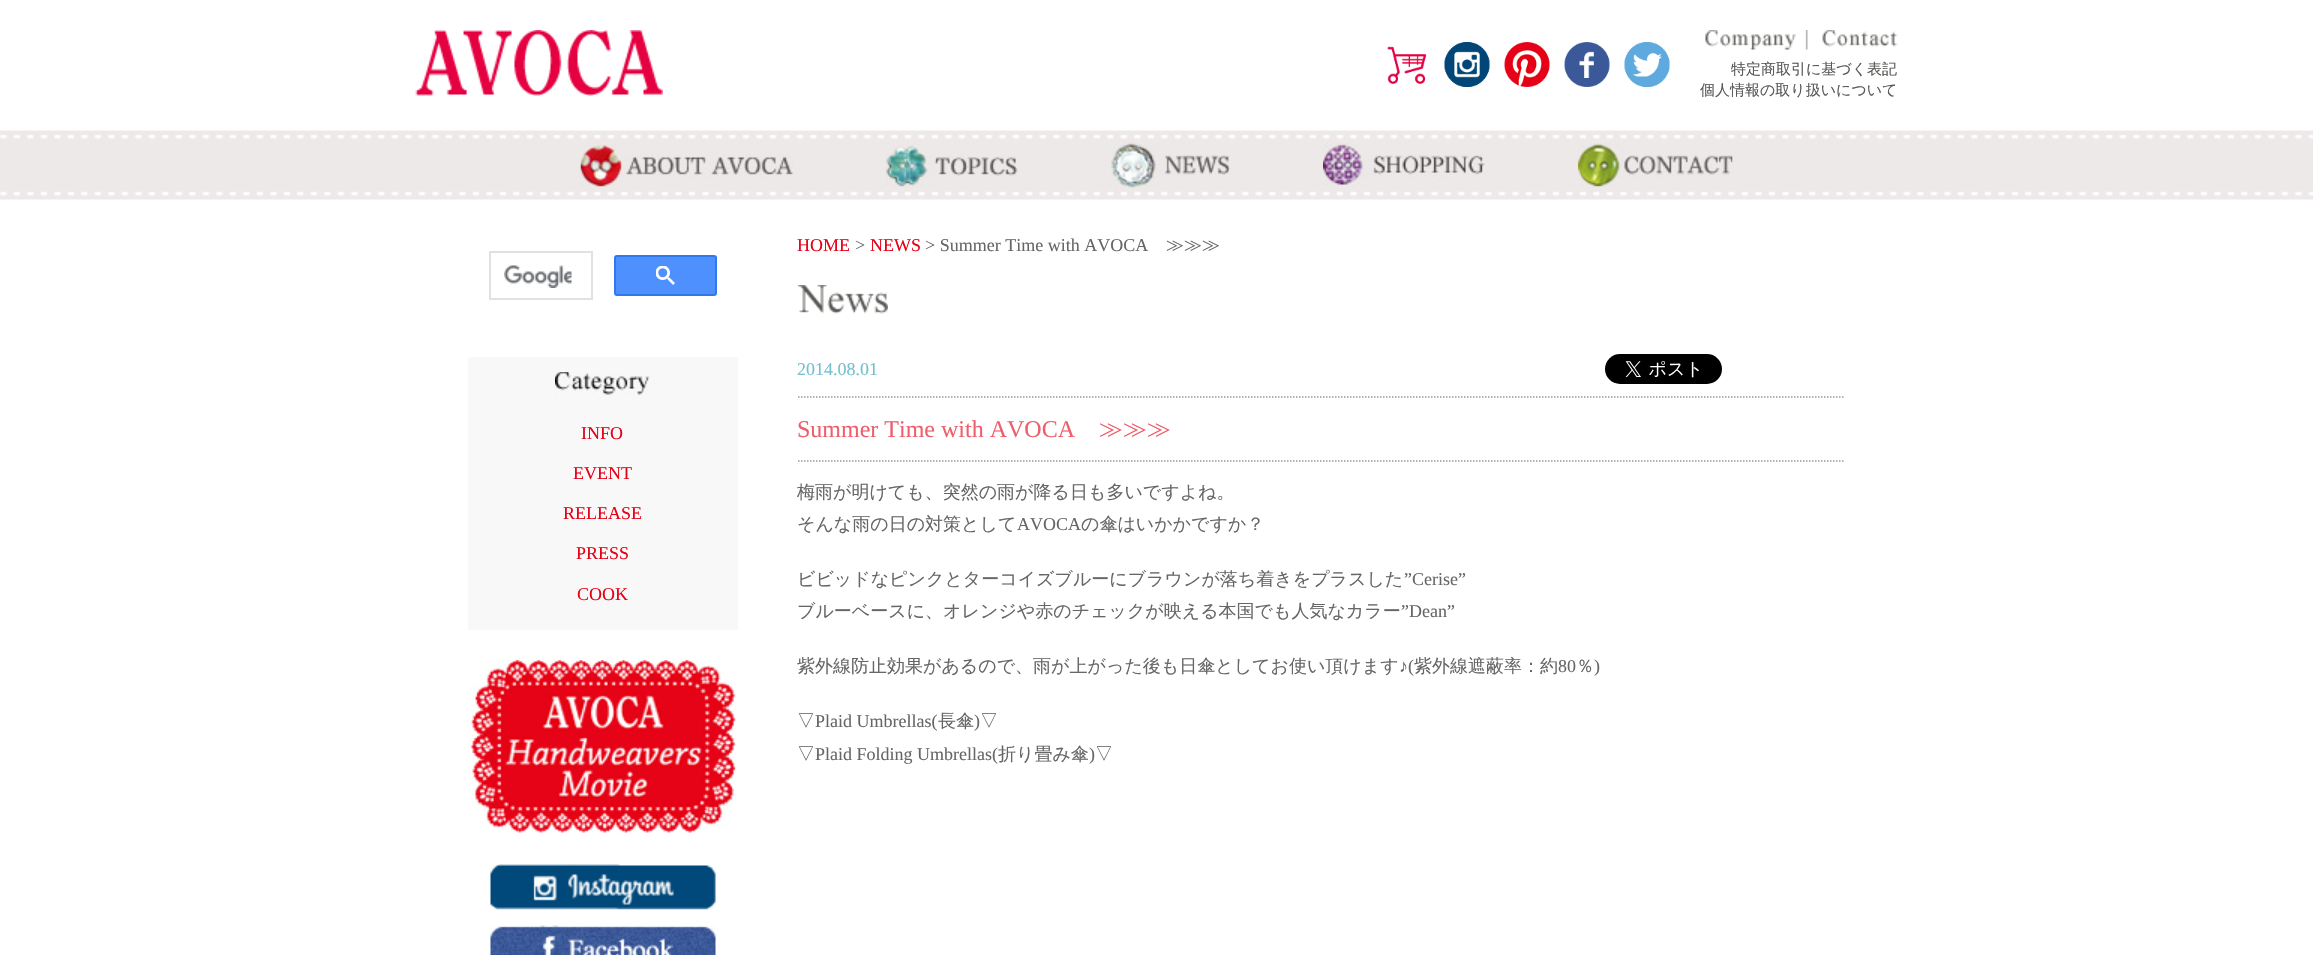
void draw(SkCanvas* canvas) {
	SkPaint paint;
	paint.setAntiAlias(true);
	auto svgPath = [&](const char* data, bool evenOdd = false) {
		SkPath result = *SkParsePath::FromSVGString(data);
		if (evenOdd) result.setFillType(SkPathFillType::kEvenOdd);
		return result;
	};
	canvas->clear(0xffffffff);
	canvas->drawImageRect(SkImages::DeferredFromEncodedData(SkData::MakeFromFileName("img1.png")), SkRect::MakeXYWH(415, 30, 248, 66), SkSamplingOptions());
	canvas->drawImageRect(SkImages::DeferredFromEncodedData(SkData::MakeFromFileName("img2.png")), SkRect::MakeXYWH(1387, 46, 40, 38), SkSamplingOptions());
	canvas->drawImageRect(SkImages::DeferredFromEncodedData(SkData::MakeFromFileName("img3.png")), SkRect::MakeXYWH(1444, 42, 46, 45), SkSamplingOptions());
	canvas->drawImageRect(SkImages::DeferredFromEncodedData(SkData::MakeFromFileName("img4.png")), SkRect::MakeXYWH(1504, 42, 46, 45), SkSamplingOptions());
	canvas->drawImageRect(SkImages::DeferredFromEncodedData(SkData::MakeFromFileName("img5.png")), SkRect::MakeXYWH(1564, 42, 46, 45), SkSamplingOptions());
	canvas->drawImageRect(SkImages::DeferredFromEncodedData(SkData::MakeFromFileName("img6.png")), SkRect::MakeXYWH(1624, 42, 46, 45), SkSamplingOptions());
	canvas->drawImageRect(SkImages::DeferredFromEncodedData(SkData::MakeFromFileName("img7.png")), SkRect::MakeXYWH(1705, 30, 103, 20), SkSamplingOptions());
	canvas->drawImageRect(SkImages::DeferredFromEncodedData(SkData::MakeFromFileName("img8.png")), SkRect::MakeXYWH(1822, 30, 76, 17), SkSamplingOptions());
	SkFont f1(fontMgr->matchFamilyStyle("WenQuanYi Zen Hei", SkFontStyle(500, SkFontStyle::kNormal_Width, SkFontStyle::kUpright_Slant)), 15);
	f1.setSubpixel(true);
	paint.setColor(0xff585756);
	canvas->drawString("特定商取引に基づく表記", 1731, 74, f1, paint);
	canvas->drawString("個人情報の取り扱いについて", 1700, 95, f1, paint);
	canvas->drawImageRect(SkImages::DeferredFromEncodedData(SkData::MakeFromFileName("img9.png")), SkRect::MakeXYWH(0, 130, 2313, 70), SkSamplingOptions());
	canvas->drawImageRect(SkImages::DeferredFromEncodedData(SkData::MakeFromFileName("img10.png")), SkRect::MakeXYWH(580, 142, 214, 45), SkSamplingOptions());
	canvas->drawImageRect(SkImages::DeferredFromEncodedData(SkData::MakeFromFileName("img11.png")), SkRect::MakeXYWH(886, 142, 132, 45), SkSamplingOptions());
	canvas->drawImageRect(SkImages::DeferredFromEncodedData(SkData::MakeFromFileName("img12.png")), SkRect::MakeXYWH(1111, 142, 119, 46), SkSamplingOptions());
	canvas->drawImageRect(SkImages::DeferredFromEncodedData(SkData::MakeFromFileName("img13.png")), SkRect::MakeXYWH(1323, 142, 162, 45), SkSamplingOptions());
	canvas->drawImageRect(SkImages::DeferredFromEncodedData(SkData::MakeFromFileName("img14.png")), SkRect::MakeXYWH(1578, 142, 155, 45), SkSamplingOptions());
	paint.setStroke(true);
	paint.setStrokeWidth(2);
	paint.setColor(0xffdfe1e5);
	canvas->drawRect(SkRect::MakeXYWH(490, 252, 102, 47), paint);
	canvas->drawImageRect(SkImages::DeferredFromEncodedData(SkData::MakeFromFileName("img15.png")), SkRect::MakeXYWH(504, 265, 68, 23), SkSamplingOptions());
	paint.setStroke(false);
	paint.setColor(0xff4d90fe);
	canvas->drawRoundRect(SkRect::MakeXYWH(615, 256, 101, 39), 2, 2, paint);
	paint.setStroke(true);
	paint.setColor(0xff3079ed);
	canvas->drawRoundRect(SkRect::MakeXYWH(615, 256, 101, 39), 2, 2, paint);
	canvas->drawImageRect(SkImages::DeferredFromEncodedData(SkData::MakeFromFileName("img16.png")), SkRect::MakeXYWH(656, 266, 19, 19), SkSamplingOptions());
	paint.setStroke(false);
	paint.setColor(0xfff8f8f8);
	canvas->drawRect(SkRect::MakeXYWH(468, 357, 270, 273), paint);
	canvas->drawImageRect(SkImages::DeferredFromEncodedData(SkData::MakeFromFileName("img17.png")), SkRect::MakeXYWH(555, 372, 95, 23), SkSamplingOptions());
	SkFont f2(fontMgr->matchFamilyStyle("Liberation Serif", SkFontStyle::Normal()), 18);
	f2.setSubpixel(true);
	paint.setColor(0xffe50217);
	canvas->drawString("INFO", 581, 439, f2, paint);
	canvas->drawString("EVENT", 573, 479, f2, paint);
	canvas->drawString("RELEASE", 563, 519, f2, paint);
	canvas->drawString("PRESS", 576, 559, f2, paint);
	canvas->drawString("COOK", 577, 600, f2, paint);
	canvas->drawImageRect(SkImages::DeferredFromEncodedData(SkData::MakeFromFileName("img18.png")), SkRect::MakeXYWH(468, 660, 268, 174), SkSamplingOptions());
	canvas->drawImageRect(SkImages::DeferredFromEncodedData(SkData::MakeFromFileName("img19.png")), SkRect::MakeXYWH(490, 864, 226, 46), SkSamplingOptions());
	canvas->drawImageRect(SkImages::DeferredFromEncodedData(SkData::MakeFromFileName("img20.png")), SkRect::MakeXYWH(490, 925, 226, 30), SkSamplingOptions());
	canvas->drawString("HOME", 797, 251, f2, paint);
	paint.setColor(0xff666666);
	canvas->drawString(">", 855, 251, f2, paint);
	paint.setColor(0xffe50217);
	canvas->drawString("NEWS", 870, 251, f2, paint);
	paint.setColor(0xff666666);
	canvas->drawString("> Summer Time with AVOCA", 925, 251, f2, paint);
	SkFont f3(fontMgr->matchFamilyStyle("WenQuanYi Zen Hei", SkFontStyle(500, SkFontStyle::kNormal_Width, SkFontStyle::kUpright_Slant)), 18);
	f3.setSubpixel(true);
	canvas->drawString("≫≫≫", 1166, 251, f3, paint);
	canvas->drawImageRect(SkImages::DeferredFromEncodedData(SkData::MakeFromFileName("img21.png")), SkRect::MakeXYWH(798, 285, 90, 29), SkSamplingOptions());
	paint.setStroke(true);
	paint.setStrokeWidth(1.5);
	paint.setColor(0xff999999);
	paint.setPathEffect(SkDashPathEffect::Make({{1.5f, 1.5f}}, 0));
	canvas->drawPath(svgPath("M798 397H1845"), paint);
	paint.setPathEffect(nullptr);
	paint.setStroke(false);
	paint.setColor(0xff76c0ce);
	canvas->drawString("2014.08.01", 797, 375, f2, paint);
	canvas->drawImageRect(SkImages::DeferredFromEncodedData(SkData::MakeFromFileName("img22.png")), SkRect::MakeXYWH(1605, 354, 117, 30), SkSamplingOptions());
	paint.setStroke(true);
	paint.setColor(0xff999999);
	paint.setPathEffect(SkDashPathEffect::Make({{1.5f, 1.5f}}, 0));
	canvas->drawPath(svgPath("M798 461H1845"), paint);
	paint.setPathEffect(nullptr);
	SkFont f4(fontMgr->matchFamilyStyle("Liberation Serif", SkFontStyle::Normal()), 24);
	f4.setSubpixel(true);
	paint.setStroke(false);
	paint.setColor(0xffee5f6c);
	canvas->drawString("Summer Time with AVOCA", 797, 437, f4, paint);
	SkFont f5(fontMgr->matchFamilyStyle("WenQuanYi Zen Hei", SkFontStyle(500, SkFontStyle::kNormal_Width, SkFontStyle::kUpright_Slant)), 24);
	f5.setSubpixel(true);
	canvas->drawString("≫≫≫", 1099, 437, f5, paint);
	paint.setColor(0xff666666);
	canvas->drawString("梅雨が明けても、突然の雨が降る日も多いですよね。", 797, 498, f3, paint);
	canvas->drawString("そんな雨の日の対策として", 797, 530, f3, paint);
	canvas->drawString("AVOCA", 1017, 530, f2, paint);
	canvas->drawString("の傘はいかかですか？", 1081, 530, f3, paint);
	canvas->drawString("ビビッドなピンクとターコイズブルーにブラウンが落ち着きをプラスした", 797, 585, f3, paint);
	canvas->drawString("”Cerise”", 1404, 585, f2, paint);
	canvas->drawString("ブルーベースに、オレンジや赤のチェックが映える本国でも人気なカラー", 797, 617, f3, paint);
	canvas->drawString("”Dean”", 1401, 617, f2, paint);
	canvas->drawString("紫外線防止効果があるので、雨が上がった後も日傘としてお使い頂けます", 797, 672, f3, paint);
	canvas->drawString("♪(", 1399, 672, f2, paint);
	canvas->drawString("紫外線遮蔽率：約", 1414, 672, f3, paint);
	canvas->drawString("80", 1558, 672, f2, paint);
	canvas->drawString("％", 1576, 672, f3, paint);
	canvas->drawString(")", 1594, 672, f2, paint);
	canvas->drawString("▽", 797, 727, f3, paint);
	canvas->drawString("Plaid Umbrellas(", 815, 727, f2, paint);
	canvas->drawString("長傘", 938, 727, f3, paint);
	canvas->drawString(")", 974, 727, f2, paint);
	canvas->drawString("▽", 980, 727, f3, paint);
	canvas->drawString("▽", 797, 760, f3, paint);
	canvas->drawString("Plaid Folding Umbrellas(", 815, 760, f2, paint);
	canvas->drawString("折り畳み傘", 998, 760, f3, paint);
	canvas->drawString(")", 1089, 760, f2, paint);
	canvas->drawString("▽", 1095, 760, f3, paint);
}
